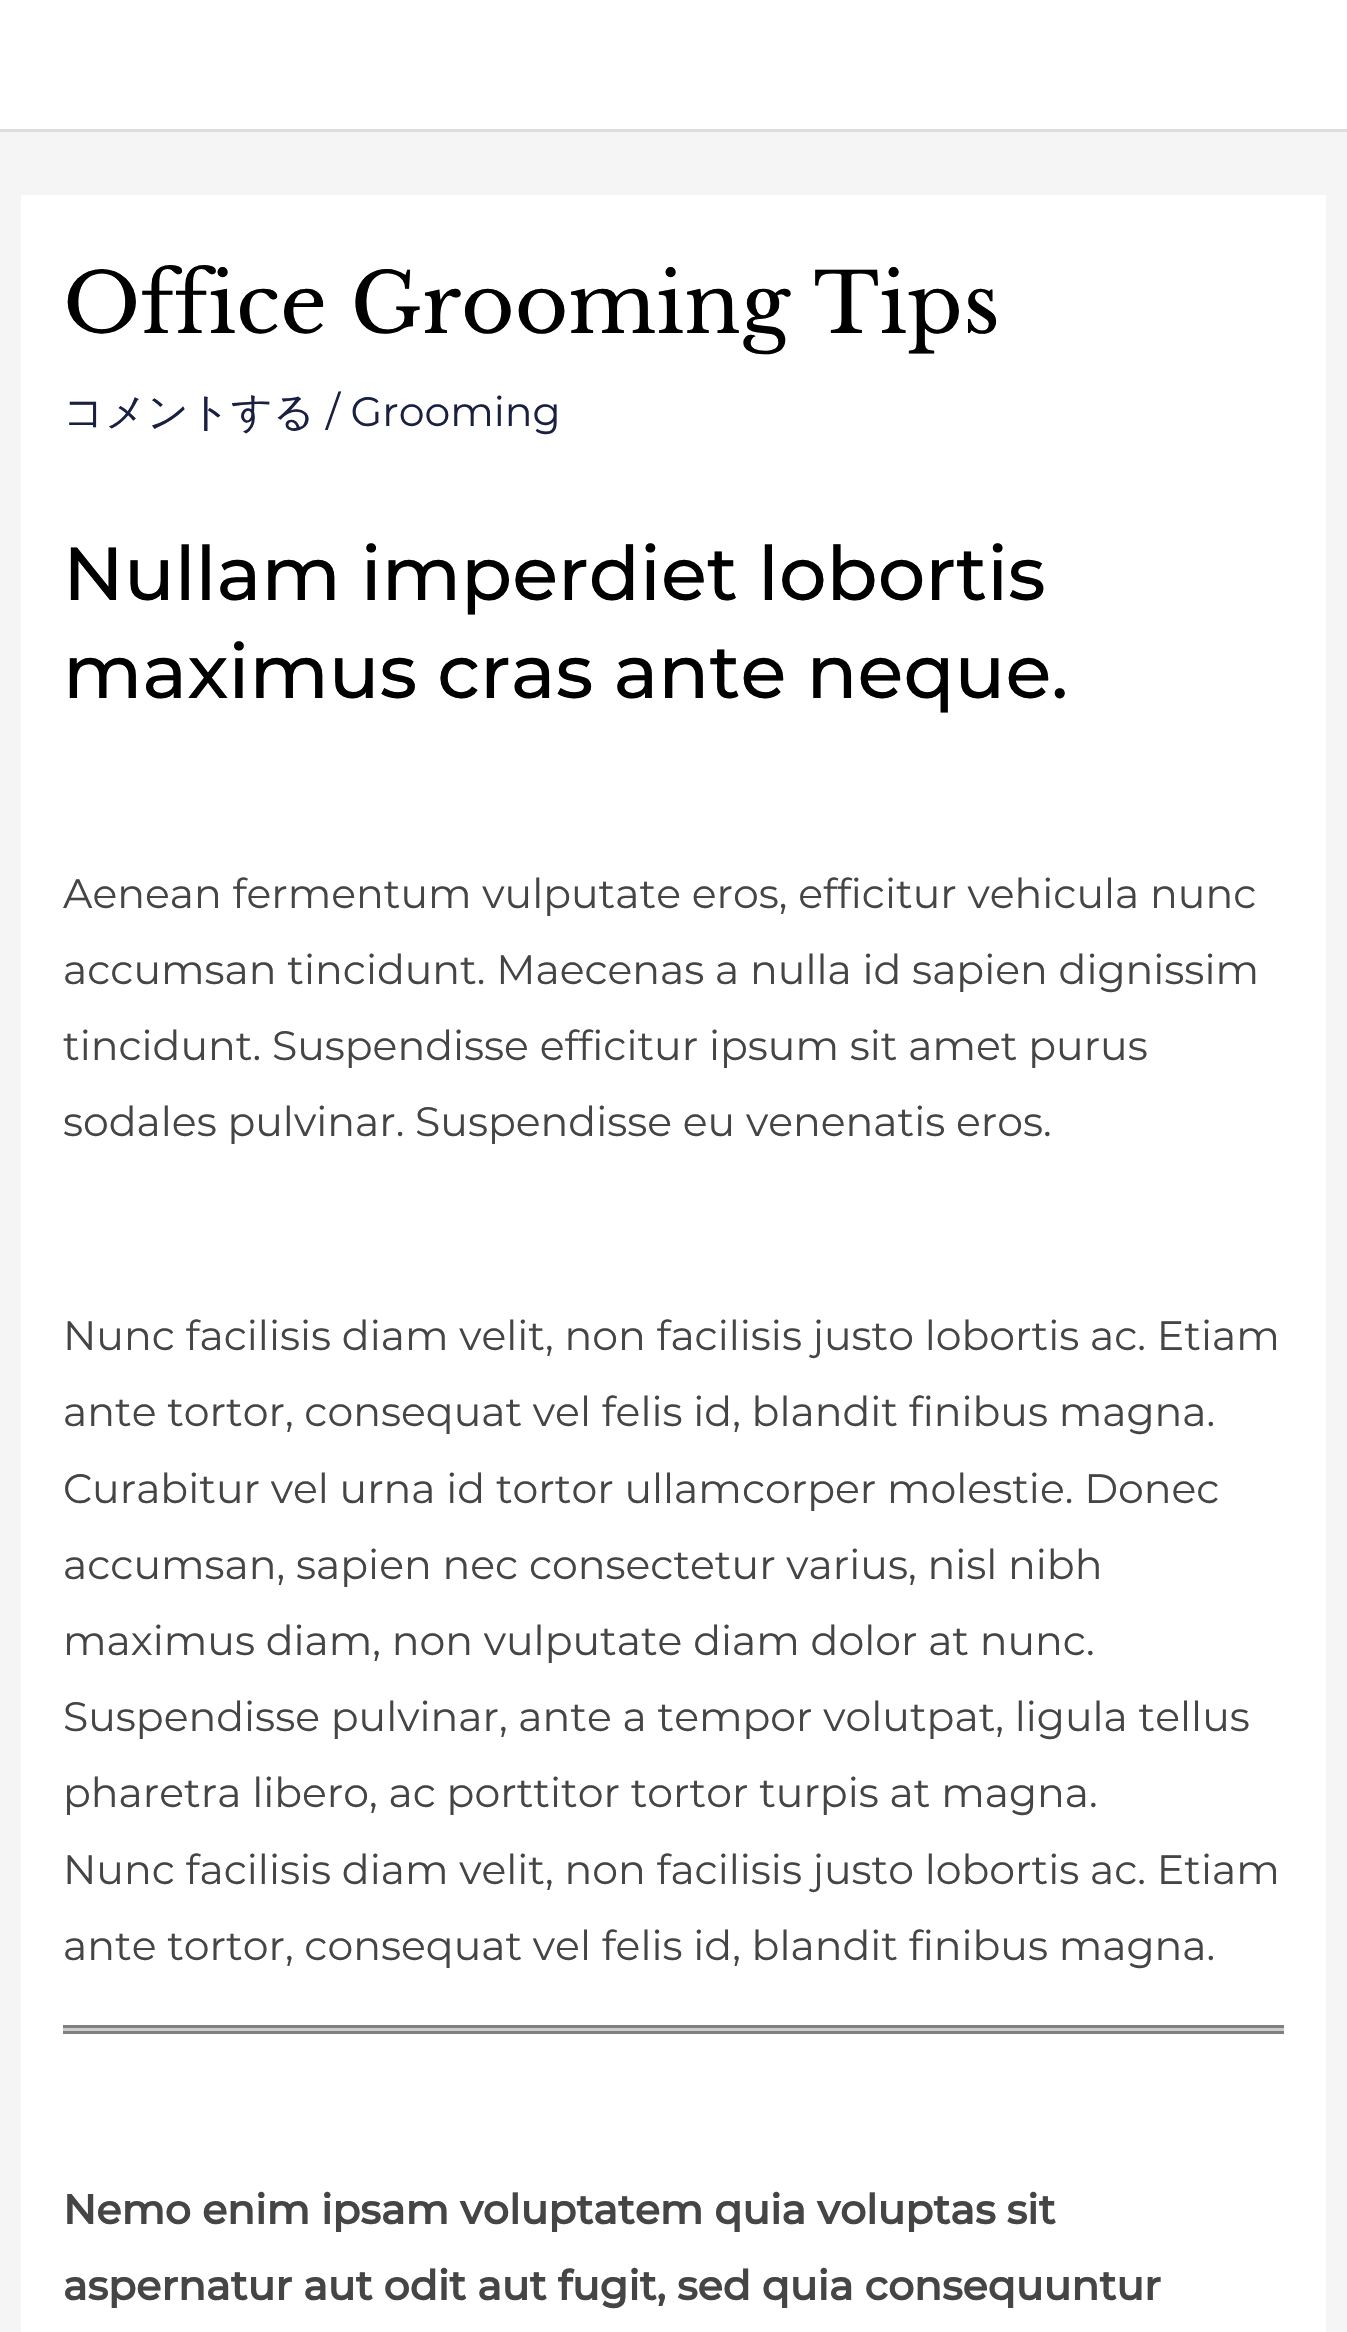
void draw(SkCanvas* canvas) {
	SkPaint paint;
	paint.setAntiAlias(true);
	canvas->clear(0xfff5f5f5);
	paint.setColor(0xffffffff);
	canvas->drawRect(SkRect::MakeXYWH(0, 0, 1347, 129), paint);
	paint.setColor(0xffdddddd);
	canvas->drawRect(SkRect::MakeXYWH(0, 129, 1347, 3), paint);
	paint.setColor(0xffffffff);
	canvas->drawRect(SkRect::MakeXYWH(21, 195, 1305, 2137), paint);
	SkFont f1(fontMgr->matchFamilyStyle("Libre Baskerville", SkFontStyle::Normal()), 82);
	f1.setSubpixel(true);
	paint.setColor(0xff000000);
	canvas->drawString("Office Grooming Tips", 63, 333, f1, paint);
	SkFont f2(fontMgr->matchFamilyStyle("WenQuanYi Zen Hei", SkFontStyle(500, SkFontStyle::kNormal_Width, SkFontStyle::kUpright_Slant)), 41.05);
	f2.setSubpixel(true);
	paint.setColor(0xff1a2041);
	canvas->drawString("コメントする", 63, 426, f2, paint);
	SkFont f3(fontMgr->matchFamilyStyle("Montserrat", SkFontStyle::Normal()), 41.05);
	f3.setSubpixel(true);
	canvas->drawString("/ Grooming", 326, 426, f3, paint);
	SkFont f4(fontMgr->matchFamilyStyle("Montserrat", SkFontStyle(500, SkFontStyle::kNormal_Width, SkFontStyle::kUpright_Slant)), 75);
	f4.setSubpixel(true);
	paint.setColor(0xff000000);
	canvas->drawString("Nullam imperdiet lobortis", 63, 600, f4, paint);
	canvas->drawString("maximus cras ante neque.", 63, 698, f4, paint);
	paint.setColor(0xff454545);
	canvas->drawString("Aenean fermentum vulputate eros, efficitur vehicula nunc", 63, 908, f3, paint);
	canvas->drawString("accumsan tincidunt. Maecenas a nulla id sapien dignissim", 63, 984, f3, paint);
	canvas->drawString("tincidunt. Suspendisse efficitur ipsum sit amet purus", 63, 1060, f3, paint);
	canvas->drawString("sodales pulvinar. Suspendisse eu venenatis eros.", 63, 1136, f3, paint);
	canvas->drawString("Nunc facilisis diam velit, non facilisis justo lobortis ac. Etiam", 63, 1350, f3, paint);
	canvas->drawString("ante tortor, consequat vel felis id, blandit finibus magna.", 63, 1426, f3, paint);
	canvas->drawString("Curabitur vel urna id tortor ullamcorper molestie. Donec", 63, 1503, f3, paint);
	canvas->drawString("accumsan, sapien nec consectetur varius, nisl nibh", 63, 1579, f3, paint);
	canvas->drawString("maximus diam, non vulputate diam dolor at nunc.", 63, 1655, f3, paint);
	canvas->drawString("Suspendisse pulvinar, ante a tempor volutpat, ligula tellus", 63, 1731, f3, paint);
	canvas->drawString("pharetra libero, ac porttitor tortor turpis at magna.", 63, 1807, f3, paint);
	canvas->drawString("Nunc facilisis diam velit, non facilisis justo lobortis ac. Etiam", 63, 1884, f3, paint);
	canvas->drawString("ante tortor, consequat vel felis id, blandit finibus magna.", 63, 1960, f3, paint);
	paint.setColor(0xffcccccc);
	canvas->drawRect(SkRect::MakeXYWH(63, 2028, 1221, 3), paint);
	paint.setColor(0xff808080);
	canvas->drawRect(SkRect::MakeXYWH(63, 2025, 1221, 3), paint);
	canvas->drawRect(SkRect::MakeXYWH(63, 2031, 1221, 3), paint);
	SkFont f5(fontMgr->matchFamilyStyle("Montserrat", SkFontStyle::Bold()), 41.05);
	f5.setSubpixel(true);
	paint.setColor(0xff454545);
	canvas->drawString("Nemo enim ipsam voluptatem quia voluptas sit", 63, 2224, f5, paint);
	canvas->drawString("aspernatur aut odit aut fugit, sed quia consequuntur", 63, 2300, f5, paint);
}
